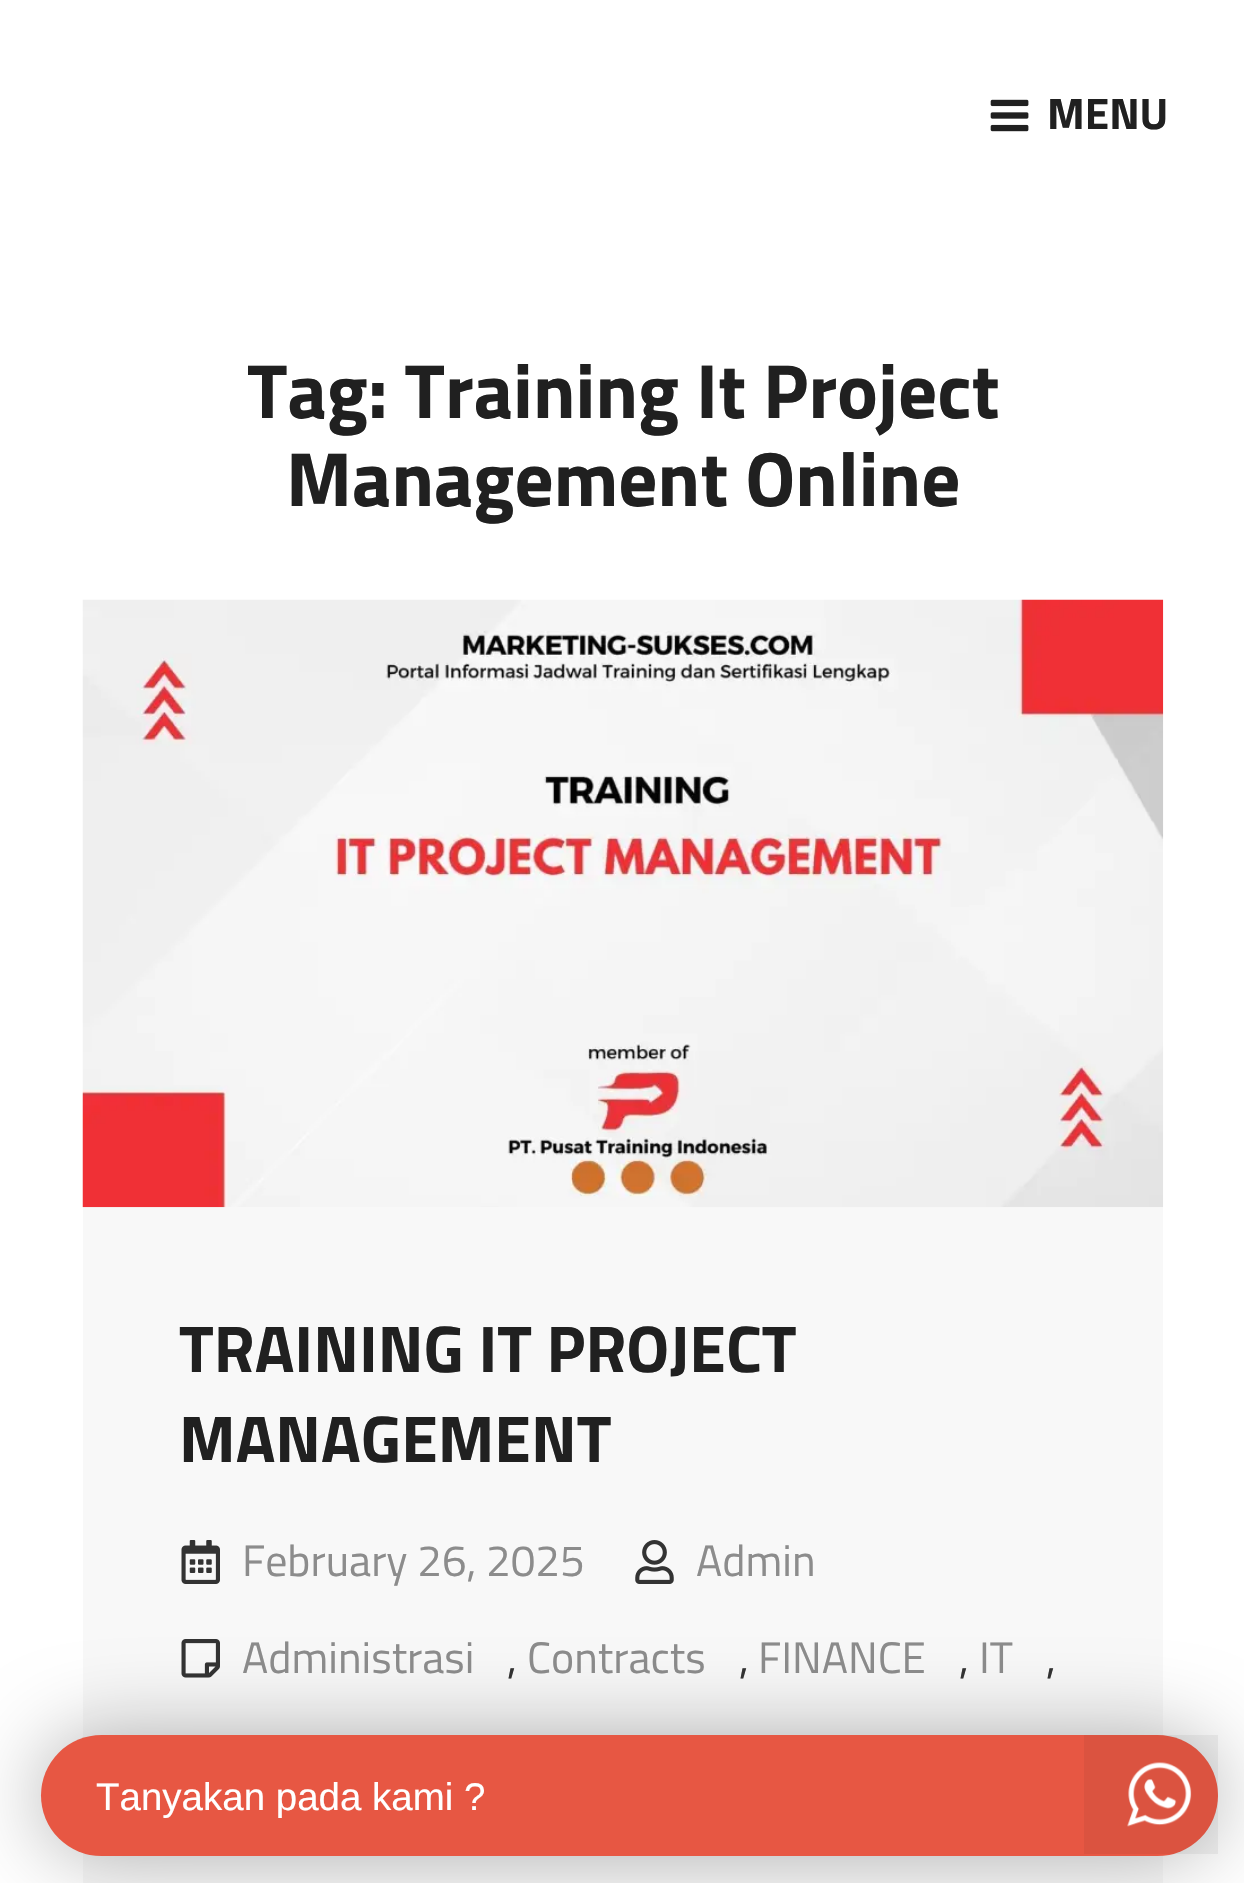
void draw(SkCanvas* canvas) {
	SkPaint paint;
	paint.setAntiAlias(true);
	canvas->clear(0xffffffff);
	canvas->drawImageRect(SkImages::DeferredFromEncodedData(SkData::MakeFromFileName("img1.png")), SkRect::MakeXYWH(990, 99, 39, 33), SkSamplingOptions());
	SkFont f1(fontMgr->matchFamilyStyle("Titillium Web", SkFontStyle::Bold()), 44);
	f1.setSubpixel(true);
	paint.setColor(0xff202020);
	canvas->drawString("MENU", 1047, 129, f1, paint);
	SkFont f2(fontMgr->matchFamilyStyle("Titillium Web", SkFontStyle::Bold()), 77);
	f2.setSubpixel(true);
	canvas->drawString("Tag: Training It Project", 247, 418, f2, paint);
	canvas->drawString("Management Online", 286, 506, f2, paint);
	paint.setColor(0xfff8f8f8);
	canvas->drawRect(SkRect::MakeXYWH(83, 1207, 1080, 676), paint);
	canvas->drawImageRect(SkImages::DeferredFromEncodedData(SkData::MakeFromFileName("img2.png")), SkRect::MakeXYWH(82, 599, 1082, 609), SkSamplingOptions());
	SkFont f3(fontMgr->matchFamilyStyle("Titillium Web", SkFontStyle::Bold()), 66);
	f3.setSubpixel(true);
	paint.setColor(0xff202020);
	canvas->drawString("TRAINING IT PROJECT", 179, 1372, f3, paint);
	canvas->drawString("MANAGEMENT", 179, 1462, f3, paint);
	canvas->drawImageRect(SkImages::DeferredFromEncodedData(SkData::MakeFromFileName("img3.png")), SkRect::MakeXYWH(181, 1540, 39, 44), SkSamplingOptions());
	SkFont f4(fontMgr->matchFamilyStyle("Titillium Web", SkFontStyle::Normal()), 44);
	f4.setSubpixel(true);
	paint.setColor(0xff8c8c8c);
	canvas->drawString("February 26, 2025", 242, 1576, f4, paint);
	canvas->drawImageRect(SkImages::DeferredFromEncodedData(SkData::MakeFromFileName("img4.png")), SkRect::MakeXYWH(635, 1540, 39, 44), SkSamplingOptions());
	canvas->drawString("Admin", 696, 1576, f4, paint);
	canvas->drawImageRect(SkImages::DeferredFromEncodedData(SkData::MakeFromFileName("img5.png")), SkRect::MakeXYWH(181, 1639, 39, 39), SkSamplingOptions());
	canvas->drawString("Administrasi", 242, 1673, f4, paint);
	paint.setColor(0xff333333);
	canvas->drawString(",", 507, 1673, f4, paint);
	paint.setColor(0xff8c8c8c);
	canvas->drawString("Contracts", 527, 1673, f4, paint);
	paint.setColor(0xff333333);
	canvas->drawString(",", 739, 1673, f4, paint);
	paint.setColor(0xff8c8c8c);
	canvas->drawString("FINANCE", 758, 1673, f4, paint);
	paint.setColor(0xff333333);
	canvas->drawString(",", 959, 1673, f4, paint);
	paint.setColor(0xff8c8c8c);
	canvas->drawString("IT", 979, 1673, f4, paint);
	paint.setColor(0xff333333);
	canvas->drawString(",", 1046, 1673, f4, paint);
	paint.setColor(0x4d000000);
	paint.setMaskFilter(SkMaskFilter::MakeBlur(kNormal_SkBlurStyle, 41));
	canvas->drawRoundRect(SkRect::MakeXYWH(41, 1735, 1177, 121), 60.5, 60.5, paint);
	paint.setMaskFilter(nullptr);
	paint.setColor(0xffe75743);
	canvas->drawRoundRect(SkRect::MakeXYWH(41, 1735, 1177, 121), 60.5, 60.5, paint);
	SkFont f5(fontMgr->matchFamilyStyle("Liberation Sans", SkFontStyle::Normal()), 38.5);
	f5.setSubpixel(true);
	paint.setColor(0xffffffff);
	canvas->drawString("Tanyakan pada kami ?", 96, 1810, f5, paint);
	paint.setColor(0x0d000000);
	canvas->drawRect(SkRect::MakeXYWH(1084, 1735, 134, 119), paint);
	canvas->drawImageRect(SkImages::DeferredFromEncodedData(SkData::MakeFromFileName("img6.png")), SkRect::MakeXYWH(1127, 1762, 65, 65), SkSamplingOptions());
}
